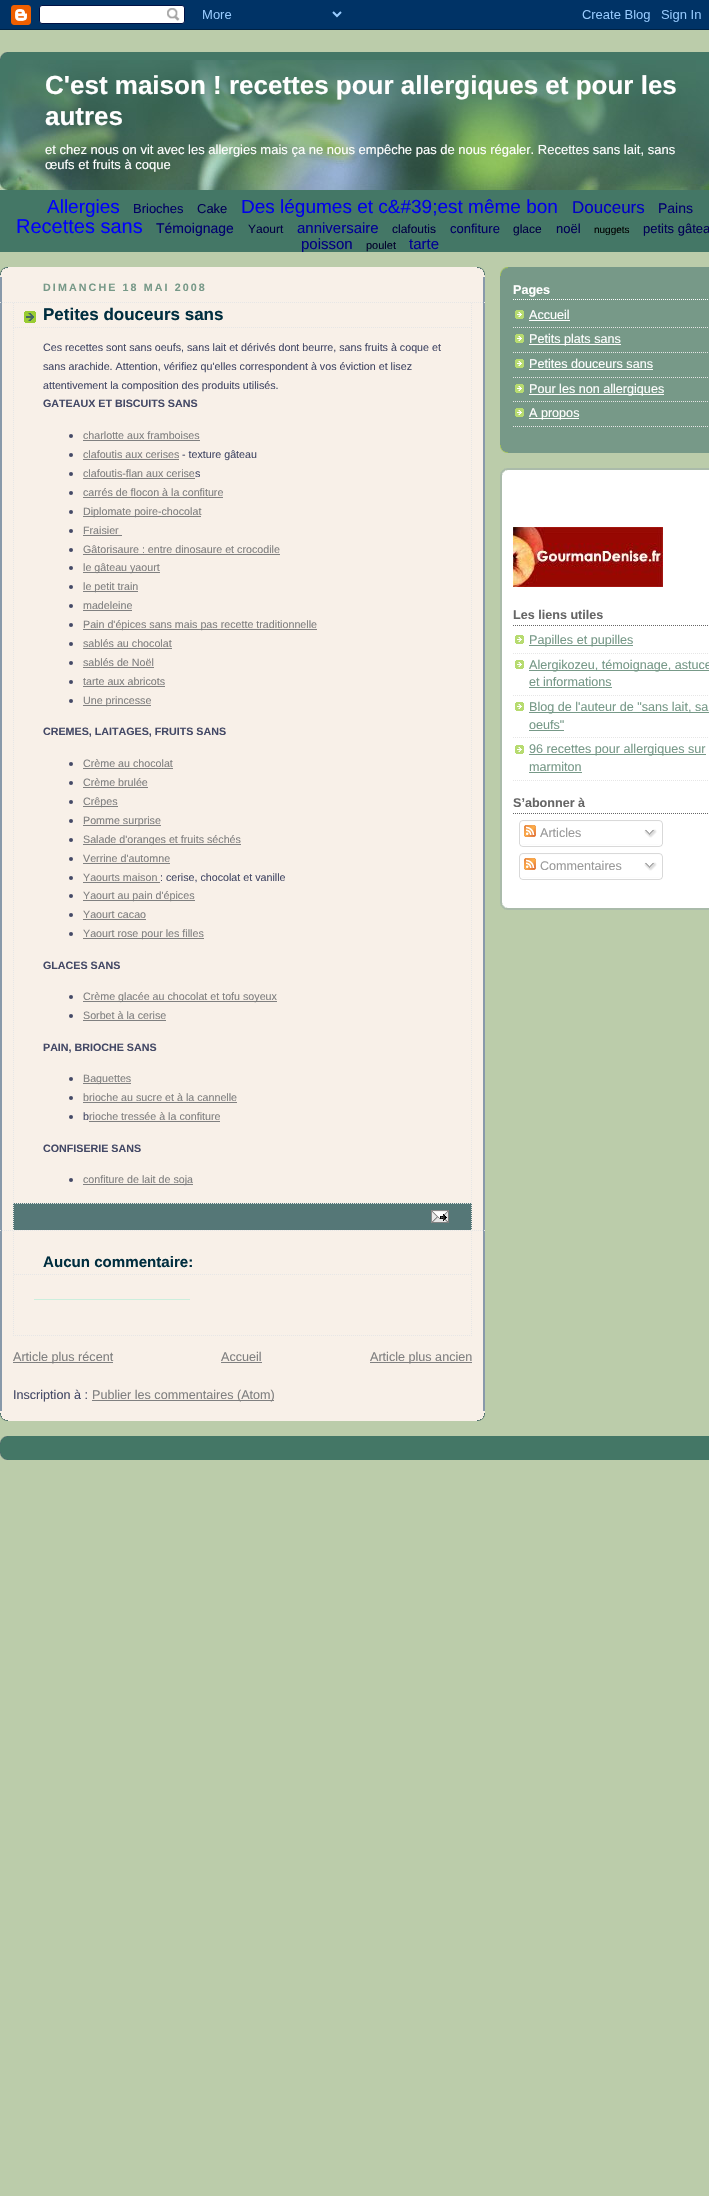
void draw(SkCanvas* canvas) {
	SkPaint paint;
	paint.setAntiAlias(true);
	auto spacedText = [&](const char* s, float x, float y, const SkFont& font, const SkPaint& ink, float letter, float word) {
		std::vector<SkGlyphID> glyphs(font.countText(s, strlen(s), SkTextEncoding::kUTF8));
		std::vector<float> xs(glyphs.size());
		font.textToGlyphs(s, strlen(s), SkTextEncoding::kUTF8, glyphs);
		font.getXPos(glyphs, xs, x);
		float extra = 0;
		for (size_t i = 0; i < glyphs.size(); i++) {
			xs[i] += extra;
			extra += letter + word * (glyphs[i] == font.unicharToGlyph(' '));
		}
		canvas->drawTextBlob(SkTextBlob::MakeFromPosHGlyphs(glyphs, xs, y, font), 0, 0, ink);
	};
	auto svgPath = [&](const char* data, bool evenOdd = false) {
		SkPath result = *SkParsePath::FromSVGString(data);
		if (evenOdd) result.setFillType(SkPathFillType::kEvenOdd);
		return result;
	};
	canvas->clear(0xffbbccaa);
	canvas->drawImageRect(SkImages::DeferredFromEncodedData(SkData::MakeFromFileName("img1.png")), SkRect::MakeXYWH(0, 0, 709, 30), SkSamplingOptions());
	paint.setColor(0xff447766);
	canvas->drawRect(SkRect::MakeXYWH(0, 52, 709, 200), paint);
	canvas->drawImageRect(SkImages::DeferredFromEncodedData(SkData::MakeFromFileName("img2.png")), SkRect::MakeXYWH(0, 52, 8, 8), SkSamplingOptions());
	canvas->drawImageRect(SkImages::DeferredFromEncodedData(SkData::MakeFromFileName("img3.png")), SkRect::MakeXYWH(0, 60, 709, 130), SkSamplingOptions());
	SkFont f1(fontMgr->matchFamilyStyle("Liberation Sans", SkFontStyle::Bold()), 26);
	f1.setSubpixel(true);
	paint.setColor(0xffffffff);
	canvas->drawString("C'est maison ! recettes pour allergiques et pour les", 45, 94, f1, paint);
	canvas->drawString("autres", 45, 125, f1, paint);
	SkFont f2(fontMgr->matchFamilyStyle("Liberation Sans", SkFontStyle::Normal()), 13);
	f2.setSubpixel(true);
	canvas->drawString("et chez nous on vit avec les allergies mais ça ne nous empêche pas de nous régaler. Recettes sans lait, sans", 45, 154, f2, paint);
	canvas->drawString("œufs et fruits à coque", 45, 169, f2, paint);
	SkFont f3(fontMgr->matchFamilyStyle("Liberation Sans", SkFontStyle::Normal()), 19);
	f3.setSubpixel(true);
	paint.setColor(0xff0000fd);
	canvas->drawString("Allergies", 47, 213, f3, paint);
	paint.setColor(0xff000063);
	canvas->drawString("Brioches", 133, 213, f2, paint);
	paint.setColor(0xff000055);
	canvas->drawString("Cake", 197, 213, f2, paint);
	paint.setColor(0xff0000eb);
	canvas->drawString("Des légumes et c&#39;est même bon", 241, 213, f3, paint);
	SkFont f4(fontMgr->matchFamilyStyle("Liberation Sans", SkFontStyle::Normal()), 17);
	f4.setSubpixel(true);
	paint.setColor(0xff0000c4);
	canvas->drawString("Douceurs", 572, 213, f4, paint);
	SkFont f5(fontMgr->matchFamilyStyle("Liberation Sans", SkFontStyle::Normal()), 14);
	f5.setSubpixel(true);
	paint.setColor(0xff00006e);
	canvas->drawString("Pains", 658, 213, f5, paint);
	SkFont f6(fontMgr->matchFamilyStyle("Liberation Sans", SkFontStyle::Normal()), 20);
	f6.setSubpixel(true);
	paint.setColor(0xff0000fd);
	canvas->drawString("Recettes sans", 16, 233, f6, paint);
	paint.setColor(0xff00006e);
	canvas->drawString("Témoignage", 156, 233, f5, paint);
	SkFont f7(fontMgr->matchFamilyStyle("Liberation Sans", SkFontStyle::Normal()), 12);
	f7.setSubpixel(true);
	paint.setColor(0xff000043);
	canvas->drawString("Yaourt", 248, 233, f7, paint);
	SkFont f8(fontMgr->matchFamilyStyle("Liberation Sans", SkFontStyle::Normal()), 15);
	f8.setSubpixel(true);
	paint.setColor(0xff000094);
	canvas->drawString("anniversaire", 297, 233, f8, paint);
	paint.setColor(0xff000043);
	canvas->drawString("clafoutis", 392, 233, f7, paint);
	paint.setColor(0xff000063);
	canvas->drawString("confiture", 450, 233, f2, paint);
	paint.setColor(0xff000043);
	canvas->drawString("glace", 513, 233, f7, paint);
	paint.setColor(0xff000055);
	canvas->drawString("noël", 556, 233, f2, paint);
	SkFont f9(fontMgr->matchFamilyStyle("Liberation Sans", SkFontStyle::Normal()), 10);
	f9.setSubpixel(true);
	paint.setColor(0xff000000);
	canvas->drawString("nuggets", 594, 233, f9, paint);
	paint.setColor(0xff000055);
	canvas->drawString("petits gâtea", 643, 233, f2, paint);
	paint.setColor(0xff000080);
	canvas->drawString("poisson", 301, 249, f8, paint);
	SkFont f10(fontMgr->matchFamilyStyle("Liberation Sans", SkFontStyle::Normal()), 11);
	f10.setSubpixel(true);
	paint.setColor(0xff00002a);
	canvas->drawString("poulet", 366, 249, f10, paint);
	paint.setColor(0xff000094);
	canvas->drawString("tarte", 409, 249, f8, paint);
	paint.setColor(0xfff8f0e8);
	canvas->drawRect(SkRect::MakeXYWH(0, 267, 485, 1154), paint);
	canvas->drawImageRect(SkImages::DeferredFromEncodedData(SkData::MakeFromFileName("img4.png")), SkRect::MakeXYWH(0, 1413, 485, 8), SkSamplingOptions());
	canvas->drawImageRect(SkImages::DeferredFromEncodedData(SkData::MakeFromFileName("img5.png")), SkRect::MakeXYWH(0, 267, 485, 9), SkSamplingOptions());
	canvas->drawImageRect(SkImages::DeferredFromEncodedData(SkData::MakeFromFileName("img6.png")), SkRect::MakeXYWH(0, 277, 485, 1134), SkSamplingOptions());
	SkFont f11(fontMgr->matchFamilyStyle("Liberation Sans", SkFontStyle::Bold()), 10.7);
	f11.setSubpixel(true);
	paint.setColor(0xff779988);
	spacedText("DIMANCHE 18 MAI 2008", 43, 291, f11, paint, 2.1, 0);
	paint.setStroke(true);
	paint.setStrokeWidth(1);
	paint.setColor(0xffe6e6e6);
	paint.setPathEffect(SkDashPathEffect::Make({{1, 1}}, 0));
	canvas->drawPath(svgPath("M0 302.5H485"), paint);
	paint.setPathEffect(nullptr);
	paint.setPathEffect(SkDashPathEffect::Make({{1, 1}}, 0));
	canvas->drawPath(svgPath("M0 1230.5H485"), paint);
	paint.setPathEffect(nullptr);
	canvas->drawImageRect(SkImages::DeferredFromEncodedData(SkData::MakeFromFileName("img7.png")), SkRect::MakeXYWH(24, 311, 12, 12), SkSamplingOptions());
	paint.setPathEffect(SkDashPathEffect::Make({{1, 1}}, 0));
	canvas->drawPath(svgPath("M471.5 303V328"), paint);
	paint.setPathEffect(nullptr);
	paint.setPathEffect(SkDashPathEffect::Make({{1, 1}}, 0));
	canvas->drawPath(svgPath("M13 327.5H472"), paint);
	paint.setPathEffect(nullptr);
	paint.setPathEffect(SkDashPathEffect::Make({{1, 1}}, 0));
	canvas->drawPath(svgPath("M13.5 303V328"), paint);
	paint.setPathEffect(nullptr);
	SkFont f12(fontMgr->matchFamilyStyle("Liberation Sans", SkFontStyle::Bold()), 17);
	f12.setSubpixel(true);
	paint.setStroke(false);
	paint.setColor(0xff002e3f);
	canvas->drawString("Petites douceurs sans", 43, 320, f12, paint);
	paint.setStroke(true);
	paint.setColor(0xffe6e6e6);
	paint.setPathEffect(SkDashPathEffect::Make({{1, 1}}, 0));
	canvas->drawPath(svgPath("M471.5 328V1203"), paint);
	paint.setPathEffect(nullptr);
	paint.setPathEffect(SkDashPathEffect::Make({{1, 1}}, 0));
	canvas->drawPath(svgPath("M13.5 328V1203"), paint);
	paint.setPathEffect(nullptr);
	SkFont f13(fontMgr->matchFamilyStyle("Liberation Sans", SkFontStyle::Normal()), 10.7);
	f13.setSubpixel(true);
	paint.setStroke(false);
	paint.setColor(0xff444966);
	canvas->drawString("Ces recettes sont sans oeufs, sans lait et dérivés dont beurre, sans fruits à coque et", 43, 351, f13, paint);
	canvas->drawString("sans arachide. Attention, vérifiez qu'elles correspondent à vos éviction et lisez", 43, 370, f13, paint);
	canvas->drawString("attentivement la composition des produits utilisés.", 43, 389, f13, paint);
	canvas->drawString("GATEAUX ET BISCUITS SANS", 43, 407, f11, paint);
	canvas->drawCircle(71, 436, 2, paint);
	paint.setColor(0xff808080);
	canvas->drawString("charlotte aux framboises", 83, 439, f13, paint);
	canvas->drawRect(SkRect::MakeXYWH(83, 440, 117, 1), paint);
	paint.setColor(0xff444966);
	canvas->drawCircle(71, 455, 2, paint);
	paint.setColor(0xff808080);
	canvas->drawString("clafoutis aux cerises", 83, 458, f13, paint);
	canvas->drawRect(SkRect::MakeXYWH(83, 459, 96, 1), paint);
	paint.setColor(0xff444966);
	canvas->drawString("- texture gâteau", 182, 458, f13, paint);
	canvas->drawCircle(71, 474, 2, paint);
	paint.setColor(0xff808080);
	canvas->drawString("clafoutis-flan aux cerise", 83, 477, f13, paint);
	paint.setColor(0xff444966);
	canvas->drawString("s", 195, 477, f13, paint);
	paint.setColor(0xff808080);
	canvas->drawRect(SkRect::MakeXYWH(83, 478, 112, 1), paint);
	paint.setColor(0xff444966);
	canvas->drawCircle(71, 493, 2, paint);
	paint.setColor(0xff808080);
	canvas->drawString("carrés de flocon à la confiture", 83, 496, f13, paint);
	canvas->drawRect(SkRect::MakeXYWH(83, 497, 140, 1), paint);
	paint.setColor(0xff444966);
	canvas->drawCircle(71, 512, 2, paint);
	paint.setColor(0xff808080);
	canvas->drawRect(SkRect::MakeXYWH(83, 516, 118, 1), paint);
	canvas->drawString("Diplomate poire-chocolat", 83, 515, f13, paint);
	paint.setColor(0xff444966);
	canvas->drawCircle(71, 531, 2, paint);
	paint.setColor(0xff808080);
	canvas->drawString("Fraisier", 83, 534, f13, paint);
	canvas->drawRect(SkRect::MakeXYWH(83, 535, 39, 1), paint);
	paint.setColor(0xff444966);
	canvas->drawCircle(71, 550, 2, paint);
	paint.setColor(0xff808080);
	canvas->drawString("Gâtorisaure : entre dinosaure et crocodile", 83, 553, f13, paint);
	canvas->drawRect(SkRect::MakeXYWH(83, 554, 197, 1), paint);
	paint.setColor(0xff444966);
	canvas->drawCircle(71, 568, 2, paint);
	paint.setColor(0xff808080);
	canvas->drawRect(SkRect::MakeXYWH(83, 572, 77, 1), paint);
	canvas->drawString("le gâteau yaourt", 83, 571, f13, paint);
	paint.setColor(0xff444966);
	canvas->drawCircle(71, 587, 2, paint);
	paint.setColor(0xff808080);
	canvas->drawRect(SkRect::MakeXYWH(83, 591, 55, 1), paint);
	canvas->drawString("le petit train", 83, 590, f13, paint);
	paint.setColor(0xff444966);
	canvas->drawCircle(71, 606, 2, paint);
	paint.setColor(0xff808080);
	canvas->drawString("madeleine", 83, 609, f13, paint);
	canvas->drawRect(SkRect::MakeXYWH(83, 610, 49, 1), paint);
	paint.setColor(0xff444966);
	canvas->drawCircle(71, 625, 2, paint);
	paint.setColor(0xff808080);
	canvas->drawRect(SkRect::MakeXYWH(83, 629, 234, 1), paint);
	canvas->drawString("Pain d'épices sans mais pas recette traditionnelle", 83, 628, f13, paint);
	paint.setColor(0xff444966);
	canvas->drawCircle(71, 644, 2, paint);
	paint.setColor(0xff808080);
	canvas->drawString("sablés au chocolat", 83, 647, f13, paint);
	canvas->drawRect(SkRect::MakeXYWH(83, 648, 89, 1), paint);
	paint.setColor(0xff444966);
	canvas->drawCircle(71, 663, 2, paint);
	paint.setColor(0xff808080);
	canvas->drawString("sablés de Noël", 83, 666, f13, paint);
	canvas->drawRect(SkRect::MakeXYWH(83, 667, 71, 1), paint);
	paint.setColor(0xff444966);
	canvas->drawCircle(71, 682, 2, paint);
	paint.setColor(0xff808080);
	canvas->drawString("tarte aux abricots", 83, 685, f13, paint);
	canvas->drawRect(SkRect::MakeXYWH(83, 686, 82, 1), paint);
	paint.setColor(0xff444966);
	canvas->drawCircle(71, 701, 2, paint);
	paint.setColor(0xff808080);
	canvas->drawRect(SkRect::MakeXYWH(83, 705, 68, 1), paint);
	canvas->drawString("Une princesse", 83, 704, f13, paint);
	paint.setColor(0xff444966);
	canvas->drawString("CREMES, LAITAGES, FRUITS SANS", 43, 735, f11, paint);
	canvas->drawCircle(71, 764, 2, paint);
	paint.setColor(0xff808080);
	canvas->drawString("Crème au chocolat", 83, 767, f13, paint);
	canvas->drawRect(SkRect::MakeXYWH(83, 768, 90, 1), paint);
	paint.setColor(0xff444966);
	canvas->drawCircle(71, 783, 2, paint);
	paint.setColor(0xff808080);
	canvas->drawString("Crème brulée", 83, 786, f13, paint);
	canvas->drawRect(SkRect::MakeXYWH(83, 787, 65, 1), paint);
	paint.setColor(0xff444966);
	canvas->drawCircle(71, 802, 2, paint);
	paint.setColor(0xff808080);
	canvas->drawRect(SkRect::MakeXYWH(83, 806, 35, 1), paint);
	canvas->drawString("Crêpes", 83, 805, f13, paint);
	paint.setColor(0xff444966);
	canvas->drawCircle(71, 821, 2, paint);
	paint.setColor(0xff808080);
	canvas->drawRect(SkRect::MakeXYWH(83, 825, 78, 1), paint);
	canvas->drawString("Pomme surprise", 83, 824, f13, paint);
	paint.setColor(0xff444966);
	canvas->drawCircle(71, 840, 2, paint);
	paint.setColor(0xff808080);
	canvas->drawRect(SkRect::MakeXYWH(83, 844, 158, 1), paint);
	canvas->drawString("Salade d'oranges et fruits séchés", 83, 843, f13, paint);
	paint.setColor(0xff444966);
	canvas->drawCircle(71, 859, 2, paint);
	paint.setColor(0xff808080);
	canvas->drawString("Verrine d'automne", 83, 862, f13, paint);
	canvas->drawRect(SkRect::MakeXYWH(83, 863, 87, 1), paint);
	paint.setColor(0xff444966);
	canvas->drawCircle(71, 878, 2, paint);
	paint.setColor(0xff808080);
	canvas->drawString("Yaourts maison", 83, 881, f13, paint);
	canvas->drawRect(SkRect::MakeXYWH(83, 882, 77, 1), paint);
	paint.setColor(0xff444966);
	canvas->drawString(": cerise, chocolat et vanille", 160, 881, f13, paint);
	canvas->drawCircle(71, 896, 2, paint);
	paint.setColor(0xff808080);
	canvas->drawRect(SkRect::MakeXYWH(83, 900, 112, 1), paint);
	canvas->drawString("Yaourt au pain d'épices", 83, 899, f13, paint);
	paint.setColor(0xff444966);
	canvas->drawCircle(71, 915, 2, paint);
	paint.setColor(0xff808080);
	canvas->drawString("Yaourt cacao", 83, 918, f13, paint);
	canvas->drawRect(SkRect::MakeXYWH(83, 919, 63, 1), paint);
	paint.setColor(0xff444966);
	canvas->drawCircle(71, 934, 2, paint);
	paint.setColor(0xff808080);
	canvas->drawRect(SkRect::MakeXYWH(83, 938, 121, 1), paint);
	canvas->drawString("Yaourt rose pour les filles", 83, 937, f13, paint);
	paint.setColor(0xff444966);
	canvas->drawString("GLACES SANS", 43, 969, f11, paint);
	canvas->drawCircle(71, 997, 2, paint);
	paint.setColor(0xff808080);
	canvas->drawRect(SkRect::MakeXYWH(83, 1001, 194, 1), paint);
	canvas->drawString("Crème glacée au chocolat et tofu soyeux", 83, 1000, f13, paint);
	paint.setColor(0xff444966);
	canvas->drawCircle(71, 1016, 2, paint);
	paint.setColor(0xff808080);
	canvas->drawString("Sorbet à la cerise", 83, 1019, f13, paint);
	canvas->drawRect(SkRect::MakeXYWH(83, 1020, 83, 1), paint);
	paint.setColor(0xff444966);
	canvas->drawString("PAIN, BRIOCHE SANS", 43, 1051, f11, paint);
	canvas->drawCircle(71, 1079, 2, paint);
	paint.setColor(0xff808080);
	canvas->drawRect(SkRect::MakeXYWH(83, 1083, 48, 1), paint);
	canvas->drawString("Baguettes", 83, 1082, f13, paint);
	paint.setColor(0xff444966);
	canvas->drawCircle(71, 1098, 2, paint);
	paint.setColor(0xff808080);
	canvas->drawString("brioche au sucre et à la cannelle", 83, 1101, f13, paint);
	canvas->drawRect(SkRect::MakeXYWH(83, 1102, 154, 1), paint);
	paint.setColor(0xff444966);
	canvas->drawCircle(71, 1117, 2, paint);
	canvas->drawString("b", 83, 1120, f13, paint);
	paint.setColor(0xff808080);
	canvas->drawRect(SkRect::MakeXYWH(89, 1121, 131, 1), paint);
	canvas->drawString("rioche tressée à la confiture", 89, 1120, f13, paint);
	paint.setColor(0xff444966);
	canvas->drawString("CONFISERIE SANS", 43, 1152, f11, paint);
	canvas->drawCircle(71, 1180, 2, paint);
	paint.setColor(0xff808080);
	canvas->drawRect(SkRect::MakeXYWH(83, 1184, 110, 1), paint);
	canvas->drawString("confiture de lait de soja", 83, 1183, f13, paint);
	paint.setColor(0xff557777);
	canvas->drawRect(SkRect::MakeXYWH(13, 1203, 459, 27), paint);
	paint.setStroke(true);
	paint.setColor(0xffe6e6e6);
	paint.setPathEffect(SkDashPathEffect::Make({{1, 1}}, 0));
	canvas->drawPath(svgPath("M13 1203.5H472"), paint);
	paint.setPathEffect(nullptr);
	paint.setPathEffect(SkDashPathEffect::Make({{1, 1}}, 0));
	canvas->drawPath(svgPath("M471.5 1203V1230"), paint);
	paint.setPathEffect(nullptr);
	paint.setPathEffect(SkDashPathEffect::Make({{1, 1}}, 0));
	canvas->drawPath(svgPath("M13.5 1203V1230"), paint);
	paint.setPathEffect(nullptr);
	canvas->drawImageRect(SkImages::DeferredFromEncodedData(SkData::MakeFromFileName("img8.png")), SkRect::MakeXYWH(431, 1210, 18, 13), SkSamplingOptions());
	paint.setPathEffect(SkDashPathEffect::Make({{1, 1}}, 0));
	canvas->drawPath(svgPath("M471.5 1231V1336"), paint);
	paint.setPathEffect(nullptr);
	paint.setPathEffect(SkDashPathEffect::Make({{1, 1}}, 0));
	canvas->drawPath(svgPath("M13 1335.5H472"), paint);
	paint.setPathEffect(nullptr);
	paint.setPathEffect(SkDashPathEffect::Make({{1, 1}}, 0));
	canvas->drawPath(svgPath("M13.5 1231V1336"), paint);
	paint.setPathEffect(nullptr);
	paint.setPathEffect(SkDashPathEffect::Make({{1, 1}}, 0));
	canvas->drawPath(svgPath("M14 1274.5H471"), paint);
	paint.setPathEffect(nullptr);
	SkFont f14(fontMgr->matchFamilyStyle("Liberation Sans", SkFontStyle::Bold()), 15.1);
	f14.setSubpixel(true);
	paint.setStroke(false);
	paint.setColor(0xff002e3f);
	canvas->drawString("Aucun commentaire:", 43, 1267, f14, paint);
	paint.setColor(0xffcceedd);
	canvas->drawRect(SkRect::MakeXYWH(34, 1299, 156, 1), paint);
	paint.setColor(0xff808080);
	canvas->drawRect(SkRect::MakeXYWH(13, 1362, 100, 1), paint);
	SkFont f15(fontMgr->matchFamilyStyle("Liberation Sans", SkFontStyle::Normal()), 12.6);
	f15.setSubpixel(true);
	canvas->drawString("Article plus récent", 13, 1361, f15, paint);
	canvas->drawString("Accueil", 221, 1361, f15, paint);
	canvas->drawRect(SkRect::MakeXYWH(221, 1362, 41, 1), paint);
	canvas->drawRect(SkRect::MakeXYWH(370, 1362, 102, 1), paint);
	canvas->drawString("Article plus ancien", 370, 1361, f15, paint);
	paint.setColor(0xff444966);
	canvas->drawString("Inscription à :", 13, 1399, f15, paint);
	paint.setColor(0xff808080);
	canvas->drawRect(SkRect::MakeXYWH(92, 1400, 182, 1), paint);
	canvas->drawString("Publier les commentaires (Atom)", 92, 1399, f15, paint);
	paint.setColor(0xff779988);
	canvas->drawRect(SkRect::MakeXYWH(500, 267, 209, 186), paint);
	canvas->drawImageRect(SkImages::DeferredFromEncodedData(SkData::MakeFromFileName("img9.png")), SkRect::MakeXYWH(500, 445, 8, 8), SkSamplingOptions());
	canvas->drawImageRect(SkImages::DeferredFromEncodedData(SkData::MakeFromFileName("img10.png")), SkRect::MakeXYWH(500, 267, 8, 9), SkSamplingOptions());
	paint.setStroke(true);
	paint.setColor(0xffffffff);
	paint.setPathEffect(SkDashPathEffect::Make({{1, 1}}, 0));
	canvas->drawPath(svgPath("M513 299.5H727"), paint);
	paint.setPathEffect(nullptr);
	SkFont f16(fontMgr->matchFamilyStyle("Liberation Sans", SkFontStyle::Bold()), 12.6);
	f16.setSubpixel(true);
	paint.setStroke(false);
	canvas->drawString("Pages", 513, 294, f16, paint);
	canvas->drawImageRect(SkImages::DeferredFromEncodedData(SkData::MakeFromFileName("img11.png")), SkRect::MakeXYWH(515, 310, 9, 9), SkSamplingOptions());
	paint.setStroke(true);
	paint.setColor(0xffe6e6e6);
	paint.setPathEffect(SkDashPathEffect::Make({{1, 1}}, 0));
	canvas->drawPath(svgPath("M513 327.5H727"), paint);
	paint.setPathEffect(nullptr);
	paint.setStroke(false);
	paint.setColor(0xffffffff);
	canvas->drawString("Accueil", 529, 319, f15, paint);
	canvas->drawRect(SkRect::MakeXYWH(529, 320, 41, 1), paint);
	canvas->drawImageRect(SkImages::DeferredFromEncodedData(SkData::MakeFromFileName("img11.png")), SkRect::MakeXYWH(515, 334, 9, 9), SkSamplingOptions());
	paint.setStroke(true);
	paint.setColor(0xffe6e6e6);
	paint.setPathEffect(SkDashPathEffect::Make({{1, 1}}, 0));
	canvas->drawPath(svgPath("M513 352.5H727"), paint);
	paint.setPathEffect(nullptr);
	paint.setStroke(false);
	paint.setColor(0xffffffff);
	canvas->drawRect(SkRect::MakeXYWH(529, 344, 92, 1), paint);
	canvas->drawString("Petits plats sans", 529, 343, f15, paint);
	canvas->drawImageRect(SkImages::DeferredFromEncodedData(SkData::MakeFromFileName("img11.png")), SkRect::MakeXYWH(515, 359, 9, 9), SkSamplingOptions());
	paint.setStroke(true);
	paint.setColor(0xffe6e6e6);
	paint.setPathEffect(SkDashPathEffect::Make({{1, 1}}, 0));
	canvas->drawPath(svgPath("M513 377.5H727"), paint);
	paint.setPathEffect(nullptr);
	paint.setStroke(false);
	paint.setColor(0xffffffff);
	canvas->drawString("Petites douceurs sans", 529, 368, f15, paint);
	canvas->drawRect(SkRect::MakeXYWH(529, 369, 124, 1), paint);
	canvas->drawImageRect(SkImages::DeferredFromEncodedData(SkData::MakeFromFileName("img11.png")), SkRect::MakeXYWH(515, 384, 9, 9), SkSamplingOptions());
	paint.setStroke(true);
	paint.setColor(0xffe6e6e6);
	paint.setPathEffect(SkDashPathEffect::Make({{1, 1}}, 0));
	canvas->drawPath(svgPath("M513 401.5H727"), paint);
	paint.setPathEffect(nullptr);
	paint.setStroke(false);
	paint.setColor(0xffffffff);
	canvas->drawRect(SkRect::MakeXYWH(529, 394, 135, 1), paint);
	canvas->drawString("Pour les non allergiques", 529, 393, f15, paint);
	canvas->drawImageRect(SkImages::DeferredFromEncodedData(SkData::MakeFromFileName("img11.png")), SkRect::MakeXYWH(515, 408, 9, 9), SkSamplingOptions());
	paint.setStroke(true);
	paint.setColor(0xffe6e6e6);
	paint.setPathEffect(SkDashPathEffect::Make({{1, 1}}, 0));
	canvas->drawPath(svgPath("M513 426.5H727"), paint);
	paint.setPathEffect(nullptr);
	paint.setStroke(false);
	paint.setColor(0xffffffff);
	canvas->drawRect(SkRect::MakeXYWH(529, 418, 50, 1), paint);
	canvas->drawString("A propos", 529, 417, f15, paint);
	canvas->drawRect(SkRect::MakeXYWH(502, 470, 207, 438), paint);
	canvas->drawImageRect(SkImages::DeferredFromEncodedData(SkData::MakeFromFileName("img12.png")), SkRect::MakeXYWH(500, 468, 209, 30), SkSamplingOptions());
	canvas->drawImageRect(SkImages::DeferredFromEncodedData(SkData::MakeFromFileName("img13.png")), SkRect::MakeXYWH(500, 880, 209, 30), SkSamplingOptions());
	paint.setColor(0xffaabbaa);
	canvas->drawRect(SkRect::MakeXYWH(500, 498, 2, 382), paint);
	canvas->drawImageRect(SkImages::DeferredFromEncodedData(SkData::MakeFromFileName("img14.png")), SkRect::MakeXYWH(513, 527, 150, 60), SkSamplingOptions());
	paint.setStroke(true);
	paint.setColor(0xff666666);
	paint.setPathEffect(SkDashPathEffect::Make({{1, 1}}, 0));
	canvas->drawPath(svgPath("M513 625.5H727"), paint);
	paint.setPathEffect(nullptr);
	paint.setStroke(false);
	canvas->drawString("Les liens utiles", 513, 619, f16, paint);
	canvas->drawImageRect(SkImages::DeferredFromEncodedData(SkData::MakeFromFileName("img15.png")), SkRect::MakeXYWH(515, 635, 9, 9), SkSamplingOptions());
	paint.setStroke(true);
	paint.setColor(0xffe6e6e6);
	paint.setPathEffect(SkDashPathEffect::Make({{1, 1}}, 0));
	canvas->drawPath(svgPath("M513 653.5H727"), paint);
	paint.setPathEffect(nullptr);
	paint.setStroke(false);
	paint.setColor(0xff779988);
	canvas->drawRect(SkRect::MakeXYWH(529, 645, 104, 1), paint);
	canvas->drawString("Papilles et pupilles", 529, 644, f15, paint);
	canvas->drawImageRect(SkImages::DeferredFromEncodedData(SkData::MakeFromFileName("img15.png")), SkRect::MakeXYWH(515, 660, 9, 9), SkSamplingOptions());
	paint.setStroke(true);
	paint.setColor(0xffe6e6e6);
	paint.setPathEffect(SkDashPathEffect::Make({{1, 1}}, 0));
	canvas->drawPath(svgPath("M513 695.5H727"), paint);
	paint.setPathEffect(nullptr);
	paint.setStroke(false);
	paint.setColor(0xff779988);
	canvas->drawRect(SkRect::MakeXYWH(529, 670, 180, 1), paint);
	canvas->drawString("Alergikozeu, témoignage, astuce", 529, 669, f15, paint);
	canvas->drawString("et informations", 529, 686, f15, paint);
	canvas->drawRect(SkRect::MakeXYWH(529, 687, 83, 1), paint);
	canvas->drawImageRect(SkImages::DeferredFromEncodedData(SkData::MakeFromFileName("img15.png")), SkRect::MakeXYWH(515, 702, 9, 9), SkSamplingOptions());
	paint.setStroke(true);
	paint.setColor(0xffe6e6e6);
	paint.setPathEffect(SkDashPathEffect::Make({{1, 1}}, 0));
	canvas->drawPath(svgPath("M513 737.5H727"), paint);
	paint.setPathEffect(nullptr);
	paint.setStroke(false);
	paint.setColor(0xff779988);
	canvas->drawRect(SkRect::MakeXYWH(529, 712, 180, 1), paint);
	canvas->drawString("Blog de l'auteur de \"sans lait, sa", 529, 711, f15, paint);
	canvas->drawString("oeufs\"", 529, 729, f15, paint);
	canvas->drawRect(SkRect::MakeXYWH(529, 730, 35, 1), paint);
	canvas->drawImageRect(SkImages::DeferredFromEncodedData(SkData::MakeFromFileName("img15.png")), SkRect::MakeXYWH(515, 745, 9, 9), SkSamplingOptions());
	paint.setStroke(true);
	paint.setColor(0xffe6e6e6);
	paint.setPathEffect(SkDashPathEffect::Make({{1, 1}}, 0));
	canvas->drawPath(svgPath("M513 780.5H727"), paint);
	paint.setPathEffect(nullptr);
	paint.setStroke(false);
	paint.setColor(0xff779988);
	canvas->drawRect(SkRect::MakeXYWH(529, 754, 177, 1), paint);
	canvas->drawString("96 recettes pour allergiques sur", 529, 753, f15, paint);
	canvas->drawString("marmiton", 529, 771, f15, paint);
	canvas->drawRect(SkRect::MakeXYWH(529, 772, 53, 1), paint);
	paint.setStroke(true);
	paint.setColor(0xff666666);
	paint.setPathEffect(SkDashPathEffect::Make({{1, 1}}, 0));
	canvas->drawPath(svgPath("M513 813.5H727"), paint);
	paint.setPathEffect(nullptr);
	paint.setStroke(false);
	canvas->drawString("S’abonner à", 513, 807, f16, paint);
	canvas->drawImageRect(SkImages::DeferredFromEncodedData(SkData::MakeFromFileName("img16.png")), SkRect::MakeXYWH(519, 820, 144, 24), SkSamplingOptions());
	canvas->drawImageRect(SkImages::DeferredFromEncodedData(SkData::MakeFromFileName("img17.png")), SkRect::MakeXYWH(524, 825, 12, 12), SkSamplingOptions());
	paint.setColor(0xff999999);
	canvas->drawString("Articles", 540, 837, f15, paint);
	canvas->drawImageRect(SkImages::DeferredFromEncodedData(SkData::MakeFromFileName("img18.png")), SkRect::MakeXYWH(644, 829, 13, 9), SkSamplingOptions());
	canvas->drawImageRect(SkImages::DeferredFromEncodedData(SkData::MakeFromFileName("img19.png")), SkRect::MakeXYWH(519, 844, 144, 3), SkSamplingOptions());
	canvas->drawImageRect(SkImages::DeferredFromEncodedData(SkData::MakeFromFileName("img16.png")), SkRect::MakeXYWH(519, 853, 144, 24), SkSamplingOptions());
	canvas->drawImageRect(SkImages::DeferredFromEncodedData(SkData::MakeFromFileName("img17.png")), SkRect::MakeXYWH(524, 858, 12, 12), SkSamplingOptions());
	canvas->drawString("Commentaires", 540, 870, f15, paint);
	canvas->drawImageRect(SkImages::DeferredFromEncodedData(SkData::MakeFromFileName("img18.png")), SkRect::MakeXYWH(644, 862, 13, 9), SkSamplingOptions());
	canvas->drawImageRect(SkImages::DeferredFromEncodedData(SkData::MakeFromFileName("img19.png")), SkRect::MakeXYWH(519, 877, 144, 3), SkSamplingOptions());
	paint.setColor(0xff447766);
	canvas->drawRect(SkRect::MakeXYWH(0, 1436, 709, 24), paint);
	canvas->drawImageRect(SkImages::DeferredFromEncodedData(SkData::MakeFromFileName("img2.png")), SkRect::MakeXYWH(0, 1436, 8, 8), SkSamplingOptions());
	canvas->drawImageRect(SkImages::DeferredFromEncodedData(SkData::MakeFromFileName("img20.png")), SkRect::MakeXYWH(0, 1452, 8, 8), SkSamplingOptions());
}
